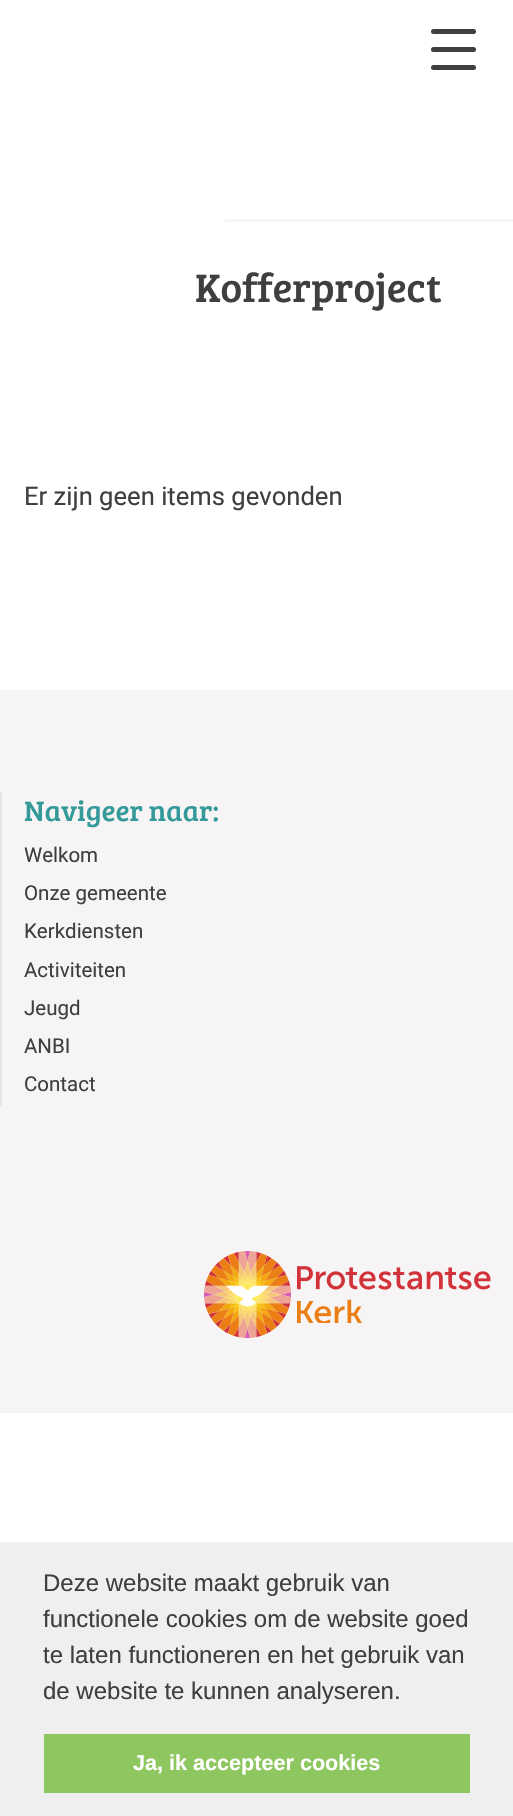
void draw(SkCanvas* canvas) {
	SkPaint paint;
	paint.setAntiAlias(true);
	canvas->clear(0xffffffff);
	paint.setColor(0xff3f3f3f);
	canvas->drawRoundRect(SkRect::MakeXYWH(431, 29, 45, 5), 2.5, 2.5, paint);
	canvas->drawRoundRect(SkRect::MakeXYWH(431, 47, 45, 5), 2.5, 2.5, paint);
	canvas->drawRoundRect(SkRect::MakeXYWH(431, 65, 45, 5), 2.5, 2.5, paint);
	paint.setColor(0xfff7f4f5);
	canvas->drawRect(SkRect::MakeXYWH(225, 219, 288, 3), paint);
	SkFont f1(fontMgr->matchFamilyStyle("Bree Serif", SkFontStyle::Normal()), 41);
	f1.setSubpixel(true);
	paint.setColor(0xff3f3f3f);
	canvas->drawString("Kofferproject", 195, 302, f1, paint);
	SkFont f2(fontMgr->matchFamilyStyle("Roboto", SkFontStyle::Normal()), 25.6);
	f2.setSubpixel(true);
	canvas->drawString("Er zijn geen items gevonden", 24, 505, f2, paint);
	paint.setColor(0xfff7f4f5);
	canvas->drawRect(SkRect::MakeXYWH(0, 690, 513, 723), paint);
	paint.setColor(0xffe6e5e5);
	canvas->drawRect(SkRect::MakeXYWH(0, 792, 2, 315), paint);
	SkFont f3(fontMgr->matchFamilyStyle("Bree Serif", SkFontStyle::Normal()), 29);
	f3.setSubpixel(true);
	paint.setColor(0xff339999);
	canvas->drawString("Navigeer naar:", 24, 821, f3, paint);
	SkFont f4(fontMgr->matchFamilyStyle("Roboto", SkFontStyle::Normal()), 20.5);
	f4.setSubpixel(true);
	paint.setColor(0xff3f3f3f);
	canvas->drawString("Welkom", 24, 862, f4, paint);
	canvas->drawString("Onze gemeente", 24, 900, f4, paint);
	canvas->drawString("Kerkdiensten", 24, 938, f4, paint);
	canvas->drawString("Activiteiten", 24, 977, f4, paint);
	canvas->drawString("Jeugd", 24, 1015, f4, paint);
	canvas->drawString("ANBI", 24, 1053, f4, paint);
	canvas->drawString("Contact", 24, 1091, f4, paint);
	canvas->drawImageRect(SkImages::DeferredFromEncodedData(SkData::MakeFromFileName("img1.png")), SkRect::MakeXYWH(204, 1251, 87, 87), SkSamplingOptions());
	canvas->drawImageRect(SkImages::DeferredFromEncodedData(SkData::MakeFromFileName("img2.png")), SkRect::MakeXYWH(297, 1266, 194, 57), SkSamplingOptions());
	paint.setColor(0xffefefef);
	canvas->drawRect(SkRect::MakeXYWH(0, 1542, 513, 274), paint);
	SkFont f5(fontMgr->matchFamilyStyle("Liberation Sans", SkFontStyle::Normal()), 24);
	f5.setSubpixel(true);
	paint.setColor(0xff3f3f3f);
	canvas->drawString("Deze website maakt gebruik van", 43, 1591, f5, paint);
	canvas->drawString("functionele cookies om de website goed", 43, 1627, f5, paint);
	canvas->drawString("te laten functioneren en het gebruik van", 43, 1663, f5, paint);
	canvas->drawString("de website te kunnen analyseren.", 43, 1699, f5, paint);
	paint.setColor(0xff8ec760);
	canvas->drawRect(SkRect::MakeXYWH(44, 1734, 426, 59), paint);
	SkFont f6(fontMgr->matchFamilyStyle("Liberation Sans", SkFontStyle::Bold()), 21.6);
	f6.setSubpixel(true);
	paint.setColor(0xffffffff);
	canvas->drawString("Ja, ik accepteer cookies", 133, 1770, f6, paint);
}
